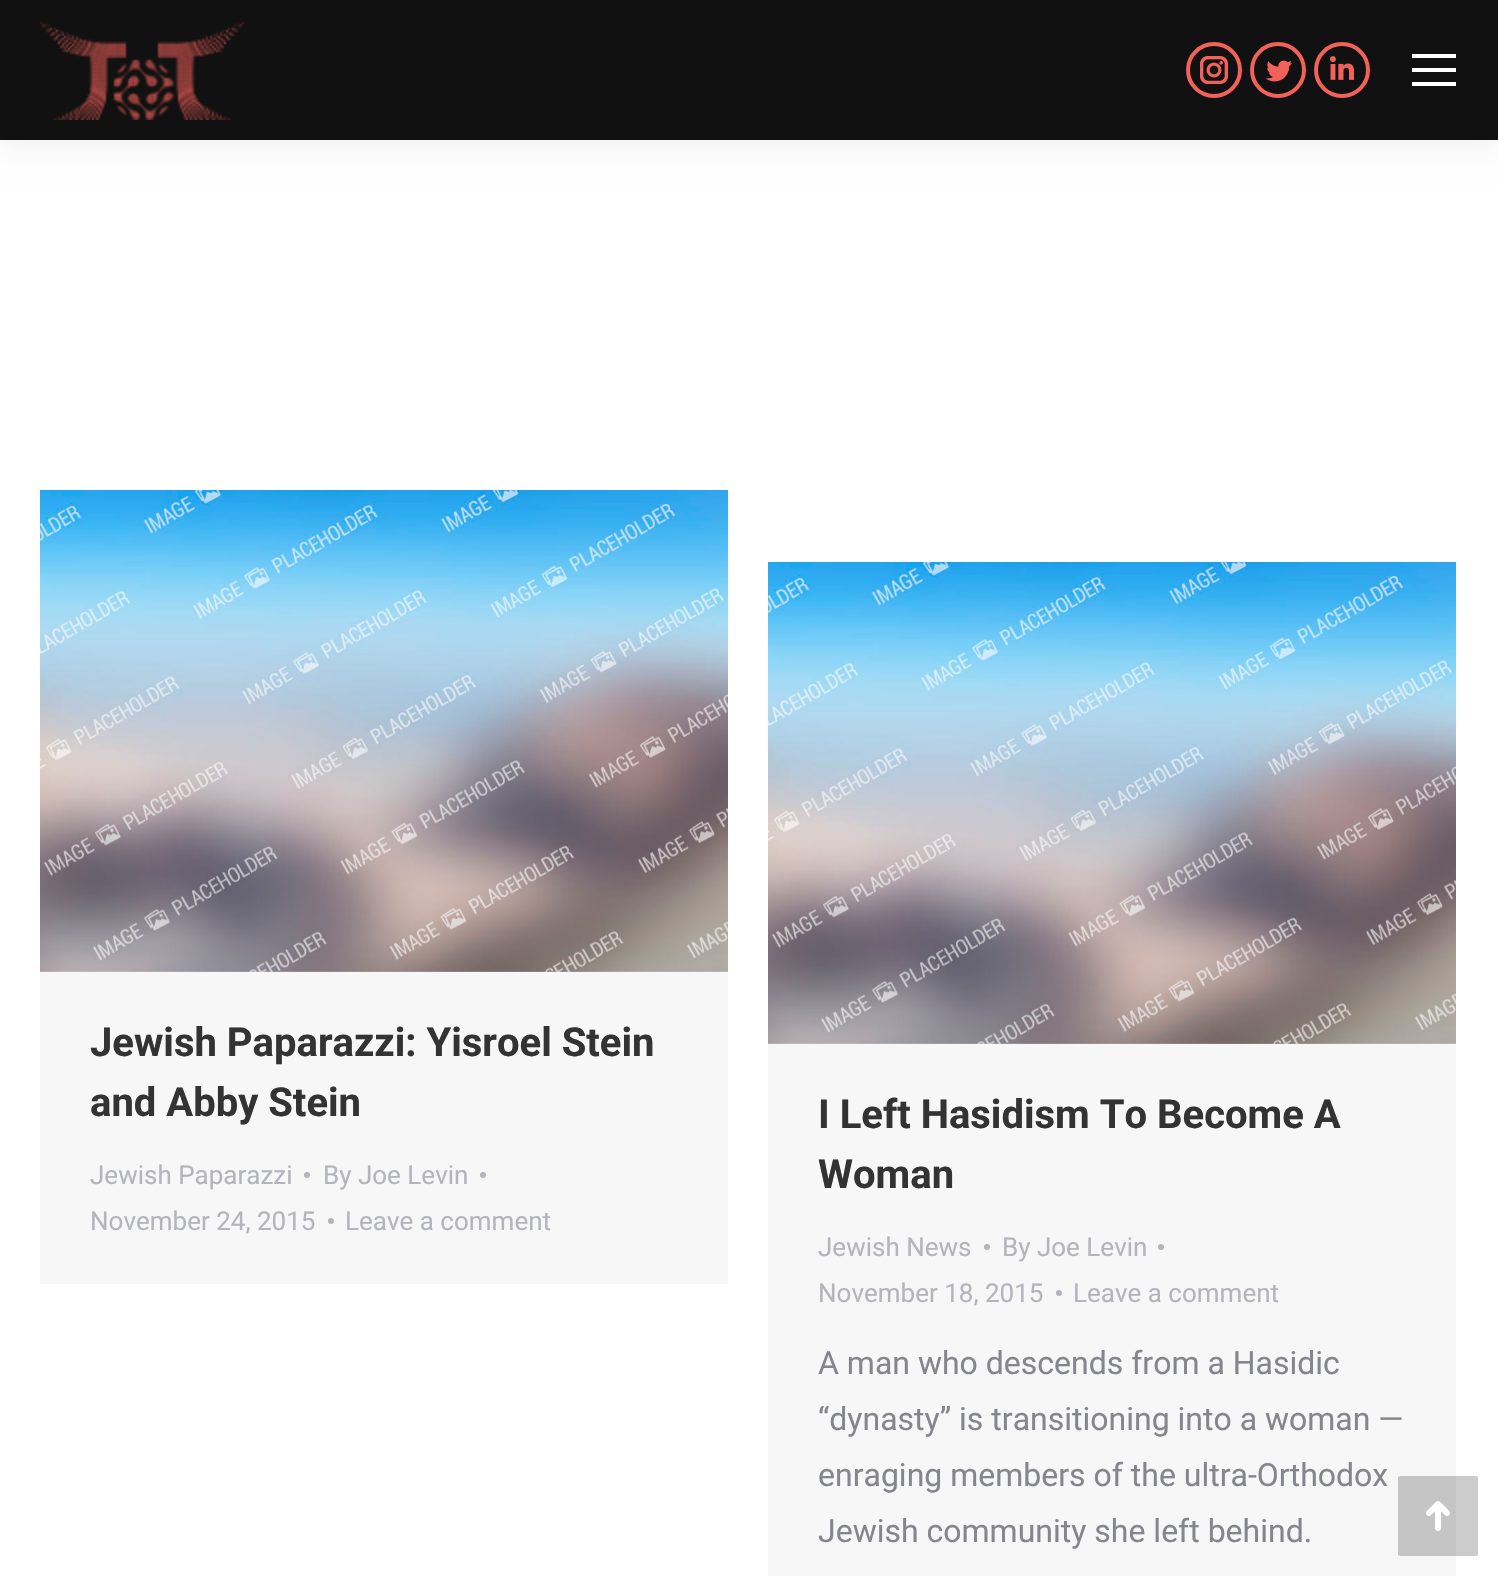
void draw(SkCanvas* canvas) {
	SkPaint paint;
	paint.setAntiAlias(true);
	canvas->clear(0xffffffff);
	paint.setColor(0x12000000);
	paint.setMaskFilter(SkMaskFilter::MakeBlur(kNormal_SkBlurStyle, 15));
	canvas->drawRect(SkRect::MakeXYWH(-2, -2, 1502, 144), paint);
	paint.setMaskFilter(nullptr);
	paint.setColor(0xff111111);
	canvas->drawRect(SkRect::MakeXYWH(0, 0, 1498, 140), paint);
	canvas->drawImageRect(SkImages::DeferredFromEncodedData(SkData::MakeFromFileName("img1.png")), SkRect::MakeXYWH(40, 21, 204, 99), SkSamplingOptions());
	paint.setStroke(true);
	paint.setStrokeWidth(4);
	paint.setColor(0xfff3615a);
	canvas->drawCircle(1214, 70, 26, paint);
	canvas->drawImageRect(SkImages::DeferredFromEncodedData(SkData::MakeFromFileName("img2.png")), SkRect::MakeXYWH(1200, 56, 28, 28), SkSamplingOptions());
	canvas->drawCircle(1278, 70, 26, paint);
	canvas->drawImageRect(SkImages::DeferredFromEncodedData(SkData::MakeFromFileName("img3.png")), SkRect::MakeXYWH(1266, 60, 26, 22), SkSamplingOptions());
	canvas->drawCircle(1342, 70, 26, paint);
	canvas->drawImageRect(SkImages::DeferredFromEncodedData(SkData::MakeFromFileName("img4.png")), SkRect::MakeXYWH(1330, 56, 24, 24), SkSamplingOptions());
	paint.setStroke(false);
	paint.setColor(0xffffffff);
	canvas->drawRect(SkRect::MakeXYWH(1412, 54, 44, 4), paint);
	canvas->drawRect(SkRect::MakeXYWH(1412, 68, 44, 4), paint);
	canvas->drawRect(SkRect::MakeXYWH(1412, 82, 44, 4), paint);
	paint.setColor(0xfff7f7f7);
	canvas->drawRect(SkRect::MakeXYWH(40, 971, 688, 313), paint);
	canvas->drawImageRect(SkImages::DeferredFromEncodedData(SkData::MakeFromFileName("img5.png")), SkRect::MakeXYWH(40, 490, 688, 482), SkSamplingOptions());
	SkFont f1(fontMgr->matchFamilyStyle("Roboto", SkFontStyle::Bold()), 40);
	f1.setSubpixel(true);
	paint.setColor(0xff333333);
	canvas->drawString("Jewish Paparazzi: Yisroel Stein", 90, 1056, f1, paint);
	canvas->drawString("and Abby Stein", 90, 1116, f1, paint);
	SkFont f2(fontMgr->matchFamilyStyle("Roboto", SkFontStyle::Normal()), 26);
	f2.setSubpixel(true);
	paint.setColor(0xffb4b5bb);
	canvas->drawString("Jewish Paparazzi", 90, 1184, f2, paint);
	canvas->drawCircle(307, 1175, 3, paint);
	canvas->drawString("By Joe Levin", 323, 1184, f2, paint);
	canvas->drawCircle(483, 1175, 3, paint);
	canvas->drawString("November 24, 2015", 90, 1230, f2, paint);
	canvas->drawCircle(331, 1221, 3, paint);
	canvas->drawString("Leave a comment", 345, 1230, f2, paint);
	paint.setColor(0xfff7f7f7);
	canvas->drawRect(SkRect::MakeXYWH(768, 1043, 688, 533), paint);
	canvas->drawImageRect(SkImages::DeferredFromEncodedData(SkData::MakeFromFileName("img6.png")), SkRect::MakeXYWH(768, 562, 688, 482), SkSamplingOptions());
	paint.setColor(0xff333333);
	canvas->drawString("I Left Hasidism To Become A", 818, 1128, f1, paint);
	canvas->drawString("Woman", 818, 1188, f1, paint);
	paint.setColor(0xffb4b5bb);
	canvas->drawString("Jewish News", 818, 1256, f2, paint);
	canvas->drawCircle(987, 1247, 3, paint);
	canvas->drawString("By Joe Levin", 1002, 1256, f2, paint);
	canvas->drawCircle(1161, 1247, 3, paint);
	canvas->drawString("November 18, 2015", 818, 1302, f2, paint);
	canvas->drawCircle(1059, 1293, 3, paint);
	canvas->drawString("Leave a comment", 1073, 1302, f2, paint);
	SkFont f3(fontMgr->matchFamilyStyle("Roboto", SkFontStyle::Normal()), 32);
	f3.setSubpixel(true);
	paint.setColor(0xff85868c);
	canvas->drawString("A man who descends from a Hasidic", 818, 1374, f3, paint);
	canvas->drawString("“dynasty” is transitioning into a woman —", 818, 1430, f3, paint);
	canvas->drawString("enraging members of the ultra-Orthodox", 818, 1486, f3, paint);
	canvas->drawString("Jewish community she left behind.", 818, 1542, f3, paint);
	paint.setColor(0x33000000);
	canvas->drawRoundRect(SkRect::MakeXYWH(1398, 1476, 80, 80), 2, 2, paint);
	canvas->drawImageRect(SkImages::DeferredFromEncodedData(SkData::MakeFromFileName("img7.png")), SkRect::MakeXYWH(1426, 1501, 24, 30), SkSamplingOptions());
}
